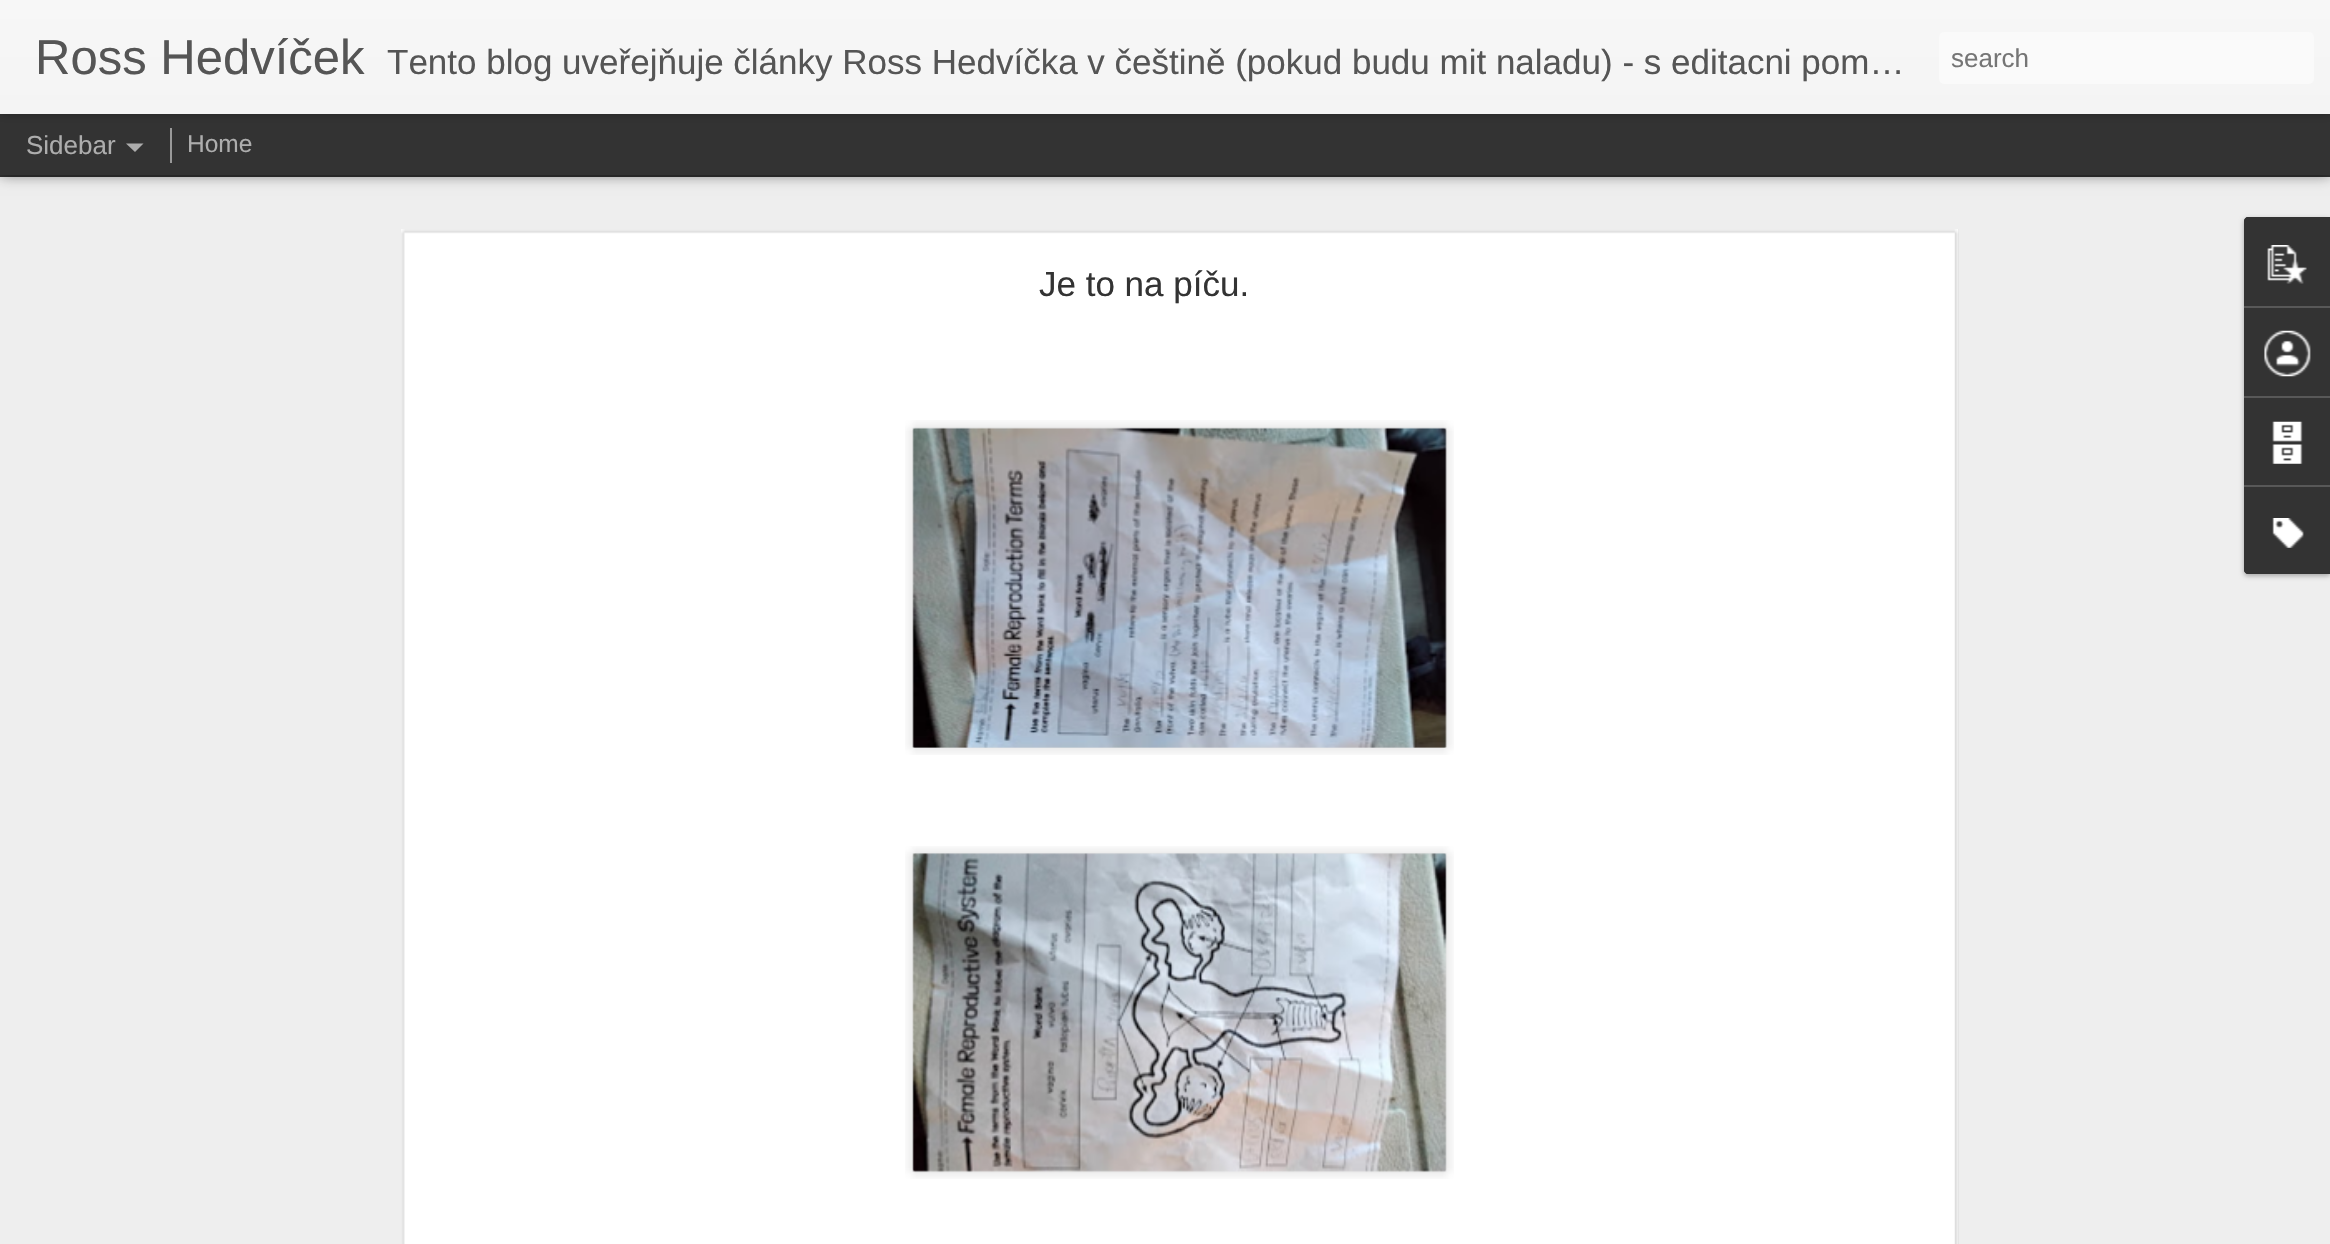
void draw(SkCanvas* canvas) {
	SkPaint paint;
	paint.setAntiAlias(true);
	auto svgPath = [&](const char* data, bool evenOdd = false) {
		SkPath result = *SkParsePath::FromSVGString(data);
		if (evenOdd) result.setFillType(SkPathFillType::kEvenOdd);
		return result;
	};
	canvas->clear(0xff333333);
	paint.setColor(0xffeeeeee);
	canvas->drawRect(SkRect::MakeXYWH(0, 177, 2330, 1067), paint);
	paint.setColor(0x80000000);
	paint.setMaskFilter(SkMaskFilter::MakeBlur(kNormal_SkBlurStyle, 7));
	canvas->drawRect(SkRect::MakeXYWH(0, 114, 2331, 61), paint);
	paint.setMaskFilter(nullptr);
	paint.setColor(0xff333333);
	canvas->drawRect(SkRect::MakeXYWH(0, 114, 2330, 61), paint);
	paint.setColor(0xff999999);
	canvas->drawRect(SkRect::MakeXYWH(170, 128, 2, 35), paint);
	paint.setColor(0x4d000000);
	paint.setMaskFilter(SkMaskFilter::MakeBlur(kNormal_SkBlurStyle, 4.5));
	canvas->drawRect(SkRect::MakeXYWH(0, 0, 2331, 114), paint);
	paint.setMaskFilter(nullptr);
	{
		const SkColor colors[] = {0xfff7f7f7, 0xfff4f4f4};
		const float stops[] = {0, 1};
		const SkPoint ends[] = {{0, 0}, {0, 114}};
		paint.setShader(SkGradientShader::MakeLinear(ends, colors, stops, 2, SkTileMode::kClamp));
		paint.setAlpha(255);
	}
	canvas->drawRect(SkRect::MakeXYWH(0, 0, 2330, 114), paint);
	SkFont f1(fontMgr->matchFamilyStyle("Liberation Sans", SkFontStyle::Normal()), 49);
	f1.setSubpixel(true);
	paint.setShader(nullptr);
	paint.setColor(0xff555555);
	canvas->drawString("Ross Hedvíček", 35, 74, f1, paint);
	SkFont f2(fontMgr->matchFamilyStyle("Liberation Sans", SkFontStyle::Normal()), 35);
	f2.setSubpixel(true);
	canvas->drawString("Tento blog uveřejňuje články Ross Hedvíčka v češtině (pokud budu mit naladu) - s editacni pom…", 387, 74, f2, paint);
	paint.setColor(0xfffafafa);
	canvas->drawRoundRect(SkRect::MakeXYWH(1939, 32, 375, 52), 5, 5, paint);
	SkFont f3(fontMgr->matchFamilyStyle("Liberation Sans", SkFontStyle::Normal()), 26);
	f3.setSubpixel(true);
	paint.setColor(0xff757575);
	canvas->drawString("search", 1951, 67, f3, paint);
	paint.setColor(0xffadadad);
	canvas->drawString("Sidebar", 26, 154, f3, paint);
	canvas->drawPath(svgPath("M126 143.5H143.5L135 152Z"), paint);
	SkFont f4(fontMgr->matchFamilyStyle("Liberation Sans", SkFontStyle::Normal()), 24.5);
	f4.setSubpixel(true);
	canvas->drawString("Home", 187, 152, f4, paint);
	paint.setColor(0xffffffff);
	canvas->drawRect(SkRect::MakeXYWH(401, 229, 1557, 1015), paint);
	canvas->drawImageRect(SkImages::DeferredFromEncodedData(SkData::MakeFromFileName("img1.png")), SkRect::MakeXYWH(401, 229, 1558, 1015), SkSamplingOptions());
	paint.setColor(0xff333333);
	canvas->drawString("Je to na píču.", 1039, 296, f2, paint);
	canvas->drawImageRect(SkImages::DeferredFromEncodedData(SkData::MakeFromFileName("img2.png")), SkRect::MakeXYWH(905, 420, 549, 335), SkSamplingOptions());
	canvas->drawImageRect(SkImages::DeferredFromEncodedData(SkData::MakeFromFileName("img3.png")), SkRect::MakeXYWH(912, 427, 535, 321), SkSamplingOptions());
	canvas->drawImageRect(SkImages::DeferredFromEncodedData(SkData::MakeFromFileName("img4.png")), SkRect::MakeXYWH(905, 846, 549, 333), SkSamplingOptions());
	canvas->drawImageRect(SkImages::DeferredFromEncodedData(SkData::MakeFromFileName("img5.png")), SkRect::MakeXYWH(912, 853, 535, 320), SkSamplingOptions());
	paint.setColor(0x4d000000);
	paint.setMaskFilter(SkMaskFilter::MakeBlur(kNormal_SkBlurStyle, 2.5));
	canvas->drawRoundRect(SkRect::MakeXYWH(2244, 219, 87, 357), 4, 4, paint);
	paint.setMaskFilter(nullptr);
	paint.setColor(0xff333333);
	canvas->drawPath(svgPath("M2248 217H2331V574H2248C2246 574 2244 572 2244 570V221C2244 219 2246 217 2248 217Z"), paint);
	canvas->drawPath(svgPath("M2248 217H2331V306H2244V221C2244 219 2246 217 2248 217Z"), paint);
	canvas->drawImageRect(SkImages::DeferredFromEncodedData(SkData::MakeFromFileName("img6.png")), SkRect::MakeXYWH(2267, 245, 40, 39), SkSamplingOptions());
	paint.setColor(0xff585858);
	canvas->drawRect(SkRect::MakeXYWH(2244, 306, 86, 2), paint);
	canvas->drawImageRect(SkImages::DeferredFromEncodedData(SkData::MakeFromFileName("img7.png")), SkRect::MakeXYWH(2264, 330, 47, 47), SkSamplingOptions());
	canvas->drawRect(SkRect::MakeXYWH(2244, 396, 86, 2), paint);
	canvas->drawImageRect(SkImages::DeferredFromEncodedData(SkData::MakeFromFileName("img8.png")), SkRect::MakeXYWH(2272, 421, 31, 43), SkSamplingOptions());
	paint.setColor(0xff333333);
	canvas->drawPath(svgPath("M2244 485H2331V574H2248C2246 574 2244 572 2244 570Z"), paint);
	paint.setColor(0xff585858);
	canvas->drawRect(SkRect::MakeXYWH(2244, 485, 86, 2), paint);
	canvas->drawImageRect(SkImages::DeferredFromEncodedData(SkData::MakeFromFileName("img9.png")), SkRect::MakeXYWH(2272, 518, 32, 30), SkSamplingOptions());
}
